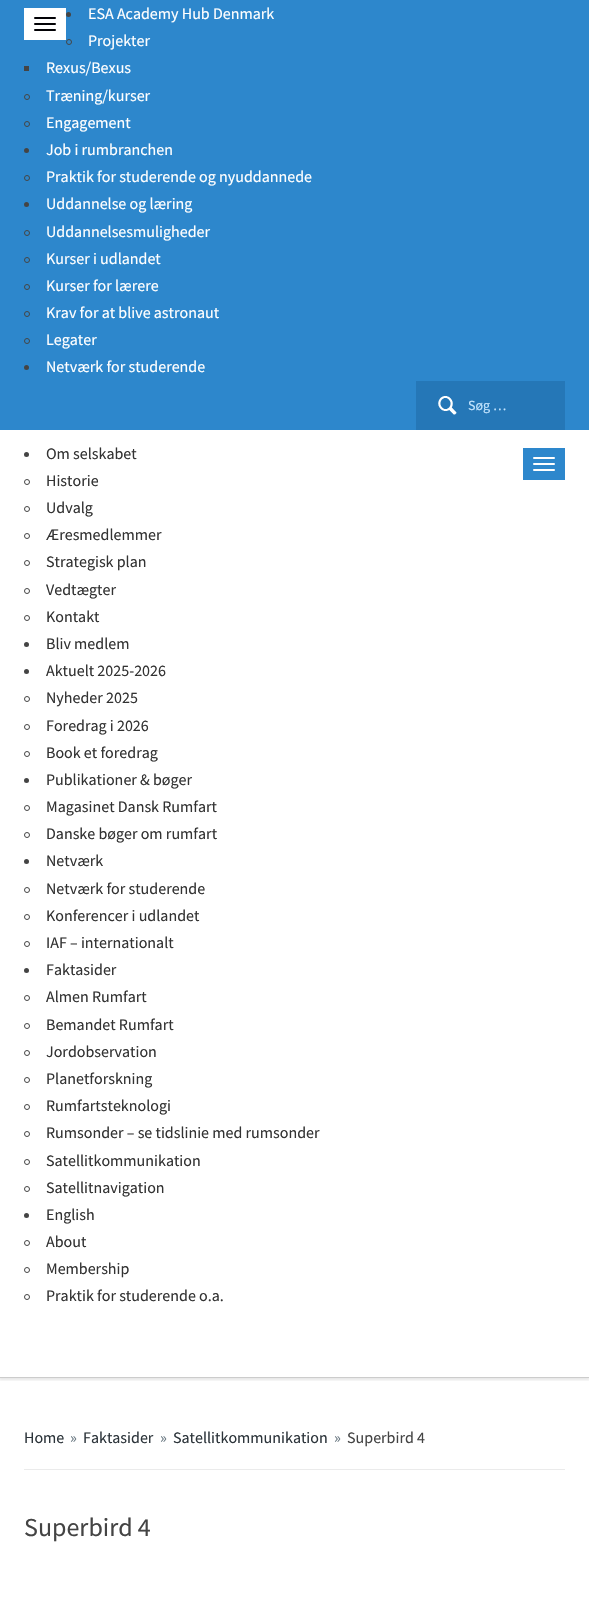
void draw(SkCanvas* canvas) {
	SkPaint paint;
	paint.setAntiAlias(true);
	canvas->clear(0xffffffff);
	canvas->save();
	canvas->clipRect(SkRect::MakeXYWH(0, 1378, 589, 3));
	paint.setColor(0x1a000000);
	paint.setMaskFilter(SkMaskFilter::MakeBlur(kNormal_SkBlurStyle, 1.5));
	canvas->drawRect(SkRect::MakeXYWH(-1, 430, 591, 950), paint);
	paint.setMaskFilter(nullptr);
	canvas->restore();
	paint.setColor(0xff2d87cc);
	canvas->drawRect(SkRect::MakeXYWH(0, 0, 589, 430), paint);
	paint.setColor(0xffffffff);
	canvas->drawRect(SkRect::MakeXYWH(24, 8, 42, 32), paint);
	paint.setColor(0xff020206);
	canvas->drawRoundRect(SkRect::MakeXYWH(34, 17, 22, 2), 1, 1, paint);
	canvas->drawRoundRect(SkRect::MakeXYWH(34, 23, 22, 2), 1, 1, paint);
	canvas->drawRoundRect(SkRect::MakeXYWH(34, 29, 22, 2), 1, 1, paint);
	paint.setColor(0xff444444);
	canvas->drawCircle(68.5, 14.5, 2.5, paint);
	SkFont f1(fontMgr->matchFamilyStyle("Source Sans Pro", SkFontStyle::Normal()), 16);
	f1.setSubpixel(true);
	paint.setColor(0xffffffff);
	canvas->drawString("ESA Academy Hub Denmark", 88, 19, f1, paint);
	paint.setStroke(true);
	paint.setStrokeWidth(1);
	paint.setColor(0xff444444);
	canvas->drawCircle(69, 42, 2.5, paint);
	paint.setStroke(false);
	paint.setColor(0xffffffff);
	canvas->drawString("Projekter", 88, 46, f1, paint);
	paint.setColor(0xff444444);
	canvas->drawRect(SkRect::MakeXYWH(24, 66, 5, 5), paint);
	paint.setColor(0xffffffff);
	canvas->drawString("Rexus/Bexus", 46, 73, f1, paint);
	paint.setStroke(true);
	paint.setColor(0xff444444);
	canvas->drawCircle(27, 97, 2.5, paint);
	paint.setStroke(false);
	paint.setColor(0xffffffff);
	canvas->drawString("Træning/kurser", 46, 101, f1, paint);
	paint.setStroke(true);
	paint.setColor(0xff444444);
	canvas->drawCircle(27, 124, 2.5, paint);
	paint.setStroke(false);
	paint.setColor(0xffffffff);
	canvas->drawString("Engagement", 46, 128, f1, paint);
	paint.setColor(0xff444444);
	canvas->drawCircle(26.5, 150.5, 2.5, paint);
	paint.setColor(0xffffffff);
	canvas->drawString("Job i rumbranchen", 46, 155, f1, paint);
	paint.setStroke(true);
	paint.setColor(0xff444444);
	canvas->drawCircle(27, 178, 2.5, paint);
	paint.setStroke(false);
	paint.setColor(0xffffffff);
	canvas->drawString("Praktik for studerende og nyuddannede", 46, 182, f1, paint);
	paint.setColor(0xff444444);
	canvas->drawCircle(26.5, 204.5, 2.5, paint);
	paint.setColor(0xffffffff);
	canvas->drawString("Uddannelse og læring", 46, 209, f1, paint);
	paint.setStroke(true);
	paint.setColor(0xff444444);
	canvas->drawCircle(27, 233, 2.5, paint);
	paint.setStroke(false);
	paint.setColor(0xffffffff);
	canvas->drawString("Uddannelsesmuligheder", 46, 237, f1, paint);
	paint.setStroke(true);
	paint.setColor(0xff444444);
	canvas->drawCircle(27, 260, 2.5, paint);
	paint.setStroke(false);
	paint.setColor(0xffffffff);
	canvas->drawString("Kurser i udlandet", 46, 264, f1, paint);
	paint.setStroke(true);
	paint.setColor(0xff444444);
	canvas->drawCircle(27, 287, 2.5, paint);
	paint.setStroke(false);
	paint.setColor(0xffffffff);
	canvas->drawString("Kurser for lærere", 46, 291, f1, paint);
	paint.setStroke(true);
	paint.setColor(0xff444444);
	canvas->drawCircle(27, 314, 2.5, paint);
	paint.setStroke(false);
	paint.setColor(0xffffffff);
	canvas->drawString("Krav for at blive astronaut", 46, 318, f1, paint);
	paint.setStroke(true);
	paint.setColor(0xff444444);
	canvas->drawCircle(27, 341, 2.5, paint);
	paint.setStroke(false);
	paint.setColor(0xffffffff);
	canvas->drawString("Legater", 46, 345, f1, paint);
	paint.setColor(0xff444444);
	canvas->drawCircle(26.5, 367.5, 2.5, paint);
	paint.setColor(0xffffffff);
	canvas->drawString("Netværk for studerende", 46, 372, f1, paint);
	paint.setColor(0xff2577b7);
	canvas->drawRect(SkRect::MakeXYWH(416, 381, 149, 49), paint);
	canvas->drawImageRect(SkImages::DeferredFromEncodedData(SkData::MakeFromFileName("img1.png")), SkRect::MakeXYWH(438, 396, 19, 19), SkSamplingOptions());
	SkFont f2(fontMgr->matchFamilyStyle("Source Sans Pro", SkFontStyle::Normal()), 14);
	f2.setSubpixel(true);
	paint.setColor(0xffc4e5ff);
	canvas->drawString("Søg …", 468, 410, f2, paint);
	paint.setColor(0xffcccccc);
	canvas->drawRect(SkRect::MakeXYWH(0, 1377, 589, 1), paint);
	paint.setColor(0xff444444);
	canvas->drawCircle(26.5, 454.5, 2.5, paint);
	paint.setColor(0xff333333);
	canvas->drawString("Om selskabet", 46, 459, f1, paint);
	paint.setStroke(true);
	paint.setColor(0xff444444);
	canvas->drawCircle(27, 482, 2.5, paint);
	paint.setStroke(false);
	paint.setColor(0xff333333);
	canvas->drawString("Historie", 46, 486, f1, paint);
	paint.setStroke(true);
	paint.setColor(0xff444444);
	canvas->drawCircle(27, 509, 2.5, paint);
	paint.setStroke(false);
	paint.setColor(0xff333333);
	canvas->drawString("Udvalg", 46, 513, f1, paint);
	paint.setStroke(true);
	paint.setColor(0xff444444);
	canvas->drawCircle(27, 536, 2.5, paint);
	paint.setStroke(false);
	paint.setColor(0xff333333);
	canvas->drawString("Æresmedlemmer", 46, 540, f1, paint);
	paint.setStroke(true);
	paint.setColor(0xff444444);
	canvas->drawCircle(27, 563, 2.5, paint);
	paint.setStroke(false);
	paint.setColor(0xff333333);
	canvas->drawString("Strategisk plan", 46, 567, f1, paint);
	paint.setStroke(true);
	paint.setColor(0xff444444);
	canvas->drawCircle(27, 591, 2.5, paint);
	paint.setStroke(false);
	paint.setColor(0xff333333);
	canvas->drawString("Vedtægter", 46, 595, f1, paint);
	paint.setStroke(true);
	paint.setColor(0xff444444);
	canvas->drawCircle(27, 618, 2.5, paint);
	paint.setStroke(false);
	paint.setColor(0xff333333);
	canvas->drawString("Kontakt", 46, 622, f1, paint);
	paint.setColor(0xff444444);
	canvas->drawCircle(26.5, 644.5, 2.5, paint);
	paint.setColor(0xff333333);
	canvas->drawString("Bliv medlem", 46, 649, f1, paint);
	paint.setColor(0xff444444);
	canvas->drawCircle(26.5, 671.5, 2.5, paint);
	paint.setColor(0xff333333);
	canvas->drawString("Aktuelt 2025-2026", 46, 676, f1, paint);
	paint.setStroke(true);
	paint.setColor(0xff444444);
	canvas->drawCircle(27, 699, 2.5, paint);
	paint.setStroke(false);
	paint.setColor(0xff333333);
	canvas->drawString("Nyheder 2025", 46, 703, f1, paint);
	paint.setStroke(true);
	paint.setColor(0xff444444);
	canvas->drawCircle(27, 727, 2.5, paint);
	paint.setStroke(false);
	paint.setColor(0xff333333);
	canvas->drawString("Foredrag i 2026", 46, 731, f1, paint);
	paint.setStroke(true);
	paint.setColor(0xff444444);
	canvas->drawCircle(27, 754, 2.5, paint);
	paint.setStroke(false);
	paint.setColor(0xff333333);
	canvas->drawString("Book et foredrag", 46, 758, f1, paint);
	paint.setColor(0xff444444);
	canvas->drawCircle(26.5, 780.5, 2.5, paint);
	paint.setColor(0xff333333);
	canvas->drawString("Publikationer & bøger", 46, 785, f1, paint);
	paint.setStroke(true);
	paint.setColor(0xff444444);
	canvas->drawCircle(27, 808, 2.5, paint);
	paint.setStroke(false);
	paint.setColor(0xff333333);
	canvas->drawString("Magasinet Dansk Rumfart", 46, 812, f1, paint);
	paint.setStroke(true);
	paint.setColor(0xff444444);
	canvas->drawCircle(27, 835, 2.5, paint);
	paint.setStroke(false);
	paint.setColor(0xff333333);
	canvas->drawString("Danske bøger om rumfart", 46, 839, f1, paint);
	paint.setColor(0xff444444);
	canvas->drawCircle(26.5, 861.5, 2.5, paint);
	paint.setColor(0xff333333);
	canvas->drawString("Netværk", 46, 866, f1, paint);
	paint.setStroke(true);
	paint.setColor(0xff444444);
	canvas->drawCircle(27, 890, 2.5, paint);
	paint.setStroke(false);
	paint.setColor(0xff333333);
	canvas->drawString("Netværk for studerende", 46, 894, f1, paint);
	paint.setStroke(true);
	paint.setColor(0xff444444);
	canvas->drawCircle(27, 917, 2.5, paint);
	paint.setStroke(false);
	paint.setColor(0xff333333);
	canvas->drawString("Konferencer i udlandet", 46, 921, f1, paint);
	paint.setStroke(true);
	paint.setColor(0xff444444);
	canvas->drawCircle(27, 944, 2.5, paint);
	paint.setStroke(false);
	paint.setColor(0xff333333);
	canvas->drawString("IAF – internationalt", 46, 948, f1, paint);
	paint.setColor(0xff444444);
	canvas->drawCircle(26.5, 970.5, 2.5, paint);
	paint.setColor(0xff333333);
	canvas->drawString("Faktasider", 46, 975, f1, paint);
	paint.setStroke(true);
	paint.setColor(0xff444444);
	canvas->drawCircle(27, 998, 2.5, paint);
	paint.setStroke(false);
	paint.setColor(0xff333333);
	canvas->drawString("Almen Rumfart", 46, 1002, f1, paint);
	paint.setStroke(true);
	paint.setColor(0xff444444);
	canvas->drawCircle(27, 1026, 2.5, paint);
	paint.setStroke(false);
	paint.setColor(0xff333333);
	canvas->drawString("Bemandet Rumfart", 46, 1030, f1, paint);
	paint.setStroke(true);
	paint.setColor(0xff444444);
	canvas->drawCircle(27, 1053, 2.5, paint);
	paint.setStroke(false);
	paint.setColor(0xff333333);
	canvas->drawString("Jordobservation", 46, 1057, f1, paint);
	paint.setStroke(true);
	paint.setColor(0xff444444);
	canvas->drawCircle(27, 1080, 2.5, paint);
	paint.setStroke(false);
	paint.setColor(0xff333333);
	canvas->drawString("Planetforskning", 46, 1084, f1, paint);
	paint.setStroke(true);
	paint.setColor(0xff444444);
	canvas->drawCircle(27, 1107, 2.5, paint);
	paint.setStroke(false);
	paint.setColor(0xff333333);
	canvas->drawString("Rumfartsteknologi", 46, 1111, f1, paint);
	paint.setStroke(true);
	paint.setColor(0xff444444);
	canvas->drawCircle(27, 1134, 2.5, paint);
	paint.setStroke(false);
	paint.setColor(0xff333333);
	canvas->drawString("Rumsonder – se tidslinie med rumsonder", 46, 1138, f1, paint);
	paint.setStroke(true);
	paint.setColor(0xff444444);
	canvas->drawCircle(27, 1162, 2.5, paint);
	paint.setStroke(false);
	paint.setColor(0xff333333);
	canvas->drawString("Satellitkommunikation", 46, 1166, f1, paint);
	paint.setStroke(true);
	paint.setColor(0xff444444);
	canvas->drawCircle(27, 1189, 2.5, paint);
	paint.setStroke(false);
	paint.setColor(0xff333333);
	canvas->drawString("Satellitnavigation", 46, 1193, f1, paint);
	paint.setColor(0xff444444);
	canvas->drawCircle(26.5, 1215.5, 2.5, paint);
	paint.setColor(0xff333333);
	canvas->drawString("English", 46, 1220, f1, paint);
	paint.setStroke(true);
	paint.setColor(0xff444444);
	canvas->drawCircle(27, 1243, 2.5, paint);
	paint.setStroke(false);
	paint.setColor(0xff333333);
	canvas->drawString("About", 46, 1247, f1, paint);
	paint.setStroke(true);
	paint.setColor(0xff444444);
	canvas->drawCircle(27, 1270, 2.5, paint);
	paint.setStroke(false);
	paint.setColor(0xff333333);
	canvas->drawString("Membership", 46, 1274, f1, paint);
	paint.setStroke(true);
	paint.setColor(0xff444444);
	canvas->drawCircle(27, 1297, 2.5, paint);
	paint.setStroke(false);
	paint.setColor(0xff333333);
	canvas->drawString("Praktik for studerende o.a.", 46, 1301, f1, paint);
	paint.setColor(0xff2d87cc);
	canvas->drawRect(SkRect::MakeXYWH(523, 448, 42, 32), paint);
	paint.setColor(0xffffffff);
	canvas->drawRoundRect(SkRect::MakeXYWH(533, 457, 22, 2), 1, 1, paint);
	canvas->drawRoundRect(SkRect::MakeXYWH(533, 463, 22, 2), 1, 1, paint);
	canvas->drawRoundRect(SkRect::MakeXYWH(533, 469, 22, 2), 1, 1, paint);
	paint.setColor(0xffebebeb);
	canvas->drawRect(SkRect::MakeXYWH(24, 1469, 541, 1), paint);
	paint.setColor(0xff2c343a);
	canvas->drawString("Home", 24, 1443, f1, paint);
	paint.setColor(0xff6c7a84);
	canvas->drawString("»", 70, 1443, f1, paint);
	paint.setColor(0xff2c343a);
	canvas->drawString("Faktasider", 83, 1443, f1, paint);
	paint.setColor(0xff6c7a84);
	canvas->drawString("»", 160, 1443, f1, paint);
	paint.setColor(0xff2c343a);
	canvas->drawString("Satellitkommunikation", 173, 1443, f1, paint);
	paint.setColor(0xff6c7a84);
	canvas->drawString("»", 334, 1443, f1, paint);
	paint.setColor(0xff444444);
	canvas->drawString("Superbird 4", 347, 1443, f1, paint);
	SkFont f3(fontMgr->matchFamilyStyle("Source Sans Pro", SkFontStyle::Normal()), 26);
	f3.setSubpixel(true);
	canvas->drawString("Superbird 4", 24, 1536, f3, paint);
}
